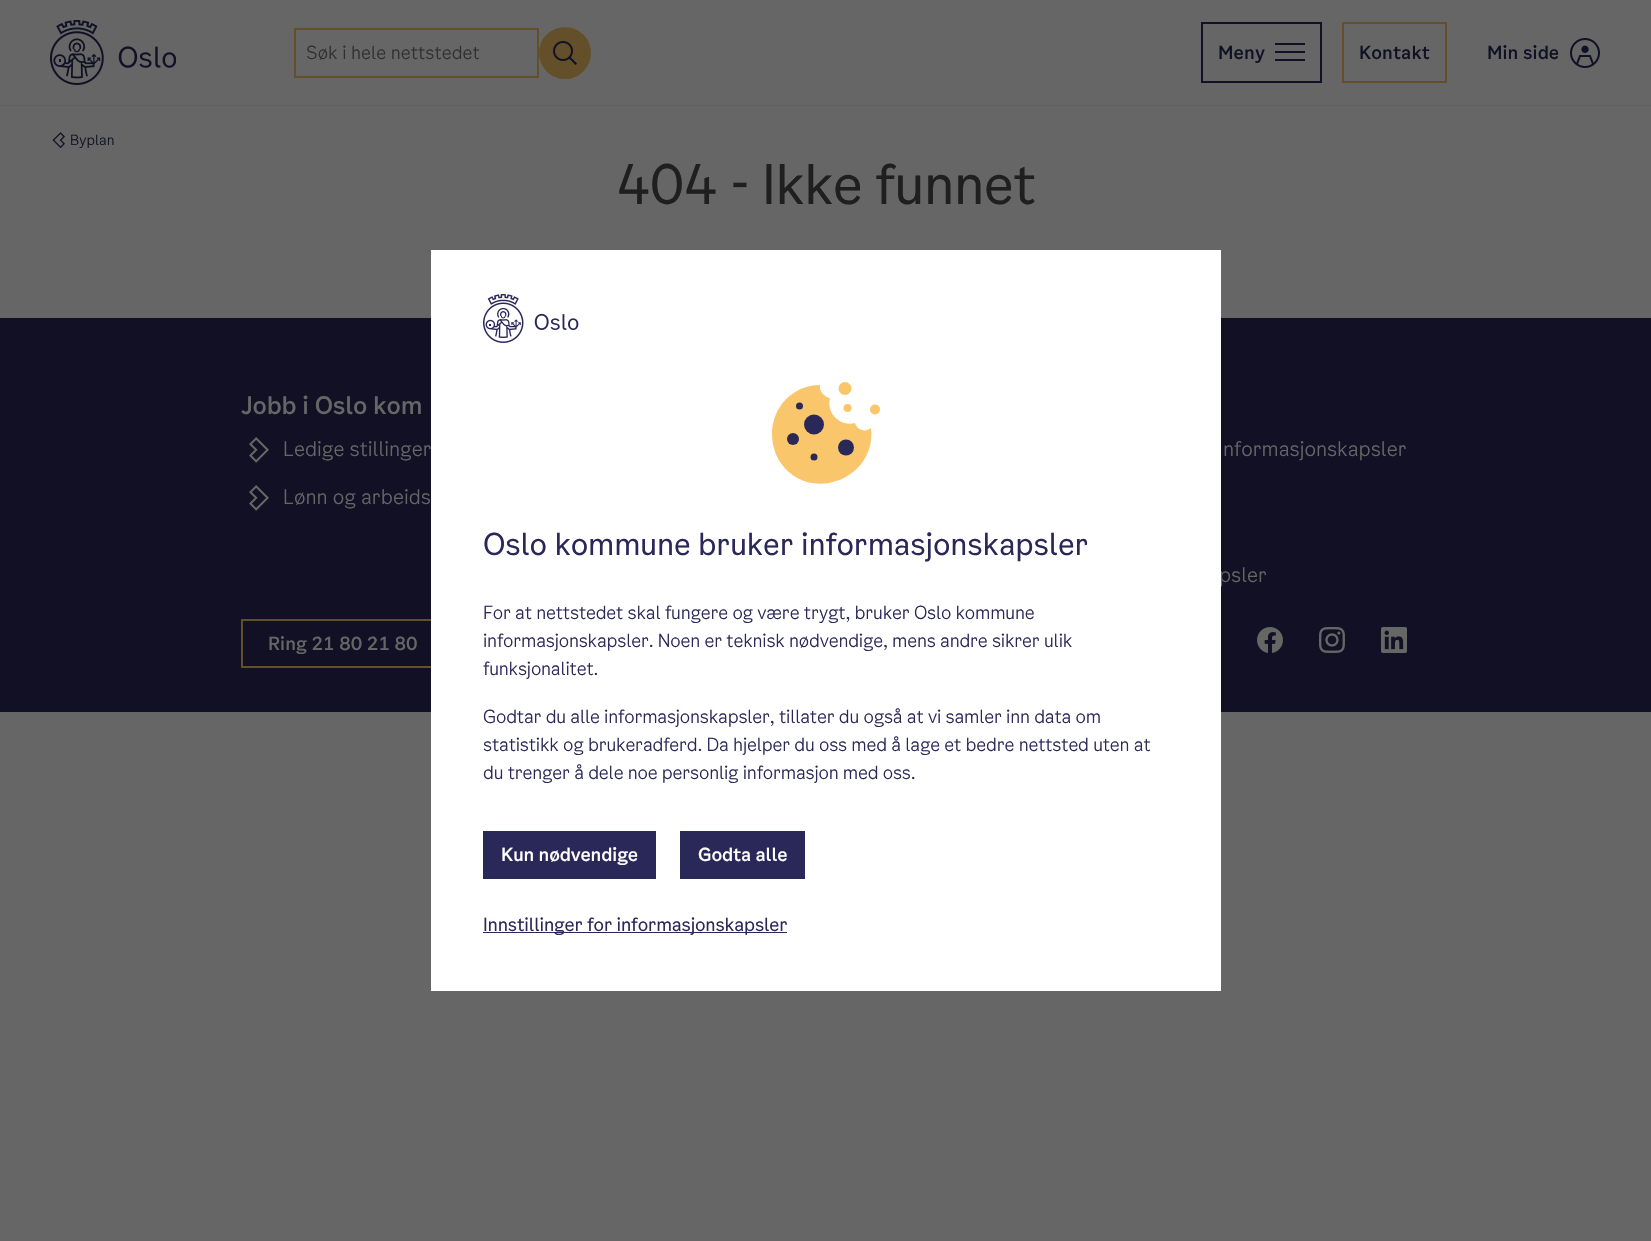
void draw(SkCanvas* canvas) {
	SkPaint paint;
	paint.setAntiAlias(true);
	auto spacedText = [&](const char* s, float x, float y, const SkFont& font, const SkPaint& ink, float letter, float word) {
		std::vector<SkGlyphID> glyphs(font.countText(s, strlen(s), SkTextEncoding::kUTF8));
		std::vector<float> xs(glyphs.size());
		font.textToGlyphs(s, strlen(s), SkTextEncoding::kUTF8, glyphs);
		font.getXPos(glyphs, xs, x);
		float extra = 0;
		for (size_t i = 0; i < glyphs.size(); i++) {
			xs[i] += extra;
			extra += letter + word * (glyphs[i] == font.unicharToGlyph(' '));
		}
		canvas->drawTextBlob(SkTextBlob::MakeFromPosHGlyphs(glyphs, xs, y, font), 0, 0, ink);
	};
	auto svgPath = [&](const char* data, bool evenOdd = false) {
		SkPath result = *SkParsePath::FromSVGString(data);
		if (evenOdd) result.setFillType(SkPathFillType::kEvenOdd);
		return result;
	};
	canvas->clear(0xff666666);
	paint.setColor(0xff616161);
	canvas->drawRect(SkRect::MakeXYWH(0, 105, 1651, 1), paint);
	canvas->drawImageRect(SkImages::DeferredFromEncodedData(SkData::MakeFromFileName("img1.png")), SkRect::MakeXYWH(50, 20, 126, 65), SkSamplingOptions());
	paint.setStroke(true);
	paint.setStrokeWidth(2);
	paint.setColor(0xff644f2b);
	canvas->drawRect(SkRect::MakeXYWH(295, 29, 243, 48), paint);
	SkFont f1(fontMgr->matchFamilyStyle("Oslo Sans", SkFontStyle(300, SkFontStyle::kNormal_Width, SkFontStyle::kUpright_Slant)), 18);
	f1.setSubpixel(true);
	paint.setStroke(false);
	paint.setColor(0xff2f2f2f);
	canvas->drawString("Søk i hele nettstedet", 306, 59, f1, paint);
	paint.setColor(0xff644f2b);
	canvas->drawCircle(565, 53, 25, paint);
	paint.setStroke(true);
	canvas->drawCircle(565, 53, 25, paint);
	canvas->drawImageRect(SkImages::DeferredFromEncodedData(SkData::MakeFromFileName("img2.png")), SkRect::MakeXYWH(553, 41, 24, 24), SkSamplingOptions());
	paint.setColor(0xff111024);
	canvas->drawRect(SkRect::MakeXYWH(1202, 23, 119, 59), paint);
	SkFont f2(fontMgr->matchFamilyStyle("Oslo Sans", SkFontStyle(500, SkFontStyle::kNormal_Width, SkFontStyle::kUpright_Slant)), 18);
	f2.setSubpixel(true);
	paint.setStroke(false);
	canvas->drawString("Meny", 1218, 59, f2, paint);
	canvas->drawRect(SkRect::MakeXYWH(1275, 43, 30, 2), paint);
	canvas->drawRect(SkRect::MakeXYWH(1275, 51, 30, 2), paint);
	canvas->drawRect(SkRect::MakeXYWH(1275, 59, 30, 2), paint);
	paint.setStroke(true);
	paint.setColor(0xff644f2b);
	canvas->drawRect(SkRect::MakeXYWH(1343, 23, 103, 59), paint);
	paint.setStroke(false);
	paint.setColor(0xff111024);
	canvas->drawString("Kontakt", 1359, 59, f2, paint);
	canvas->drawString("Min side", 1487, 59, f2, paint);
	canvas->drawImageRect(SkImages::DeferredFromEncodedData(SkData::MakeFromFileName("img3.png")), SkRect::MakeXYWH(1570, 38, 30, 30), SkSamplingOptions());
	canvas->drawImageRect(SkImages::DeferredFromEncodedData(SkData::MakeFromFileName("img4.png")), SkRect::MakeXYWH(52, 132, 13, 17), SkSamplingOptions());
	SkFont f3(fontMgr->matchFamilyStyle("Oslo Sans", SkFontStyle(300, SkFontStyle::kNormal_Width, SkFontStyle::kUpright_Slant)), 14);
	f3.setSubpixel(true);
	canvas->drawString("Byplan", 70, 145, f3, paint);
	SkFont f4(fontMgr->matchFamilyStyle("Oslo Sans", SkFontStyle::Normal()), 54);
	f4.setSubpixel(true);
	paint.setColor(0xff1f1f1f);
	spacedText("404 - Ikke funnet", 616, 204, f4, paint, -0.9, 0);
	paint.setColor(0xff111024);
	canvas->drawRect(SkRect::MakeXYWH(0, 318, 1651, 394), paint);
	SkFont f5(fontMgr->matchFamilyStyle("Oslo Sans", SkFontStyle(500, SkFontStyle::kNormal_Width, SkFontStyle::kUpright_Slant)), 24);
	f5.setSubpixel(true);
	paint.setColor(0xff666666);
	spacedText("Jobb i Oslo kom", 241, 414, f5, paint, -0.25, 0);
	canvas->drawImageRect(SkImages::DeferredFromEncodedData(SkData::MakeFromFileName("img5.png")), SkRect::MakeXYWH(249, 437, 20, 26), SkSamplingOptions());
	SkFont f6(fontMgr->matchFamilyStyle("Oslo Sans", SkFontStyle(300, SkFontStyle::kNormal_Width, SkFontStyle::kUpright_Slant)), 20);
	f6.setSubpixel(true);
	canvas->drawString("Ledige stillinger", 283, 456, f6, paint);
	canvas->drawImageRect(SkImages::DeferredFromEncodedData(SkData::MakeFromFileName("img5.png")), SkRect::MakeXYWH(249, 485, 20, 26), SkSamplingOptions());
	canvas->drawString("Lønn og arbeids", 283, 504, f6, paint);
	canvas->drawString("nformasjonskapsler", 1223, 456, f6, paint);
	canvas->drawString("psler", 1219, 582, f6, paint);
	paint.setStroke(true);
	paint.setColor(0xff644f2b);
	canvas->drawRect(SkRect::MakeXYWH(242, 620, 201, 47), paint);
	paint.setStroke(false);
	paint.setColor(0xff666666);
	canvas->drawString("Ring 21 80 21 80", 268, 650, f2, paint);
	canvas->drawImageRect(SkImages::DeferredFromEncodedData(SkData::MakeFromFileName("img6.png")), SkRect::MakeXYWH(1257, 627, 26, 26), SkSamplingOptions());
	canvas->drawImageRect(SkImages::DeferredFromEncodedData(SkData::MakeFromFileName("img7.png")), SkRect::MakeXYWH(1319, 627, 26, 26), SkSamplingOptions());
	canvas->drawImageRect(SkImages::DeferredFromEncodedData(SkData::MakeFromFileName("img8.png")), SkRect::MakeXYWH(1381, 627, 26, 26), SkSamplingOptions());
	paint.setColor(0xffffffff);
	canvas->drawRect(SkRect::MakeXYWH(431, 250, 790, 741), paint);
	canvas->drawImageRect(SkImages::DeferredFromEncodedData(SkData::MakeFromFileName("img9.png")), SkRect::MakeXYWH(483, 294, 96, 49), SkSamplingOptions());
	paint.setColor(0xfff9c66b);
	canvas->drawPath(svgPath("M772 434C772 407 793 385 820 385C819 391 824 397 830 398C826 413 840 427 855 423C857 430 865 433 871 428C877 479 809 505 780 462C775 454 772 444 772 434Z", true), paint);
	canvas->drawCircle(845, 388.5, 6.5, paint);
	paint.setColor(0xff2a2859);
	canvas->drawCircle(799.5, 406, 3.5, paint);
	paint.setColor(0xfff9c66b);
	canvas->drawCircle(847.5, 408, 4, paint);
	canvas->drawCircle(875, 409.5, 5, paint);
	paint.setColor(0xff2a2859);
	canvas->drawCircle(814, 424.5, 10, paint);
	canvas->drawCircle(793, 439, 6, paint);
	canvas->drawCircle(846, 447.5, 8, paint);
	canvas->drawCircle(814, 457, 3.5, paint);
	SkFont f7(fontMgr->matchFamilyStyle("Oslo Sans", SkFontStyle::Normal()), 30);
	f7.setSubpixel(true);
	spacedText("Oslo kommune bruker informasjonskapsler", 483, 555, f7, paint, -0.2, 0);
	spacedText("For at nettstedet skal fungere og være trygt, bruker Oslo kommune", 483, 619, f1, paint, -0.2, 0);
	spacedText("informasjonskapsler. Noen er teknisk nødvendige, mens andre sikrer ulik", 483, 647, f1, paint, -0.2, 0);
	spacedText("funksjonalitet.", 483, 675, f1, paint, -0.2, 0);
	spacedText("Godtar du alle informasjonskapsler, tillater du også at vi samler inn data om", 483, 723, f1, paint, -0.2, 0);
	spacedText("statistikk og brukeradferd. Da hjelper du oss med å lage et bedre nettsted uten at", 483, 751, f1, paint, -0.2, 0);
	spacedText("du trenger å dele noe personlig informasjon med oss.", 483, 779, f1, paint, -0.2, 0);
	canvas->drawRect(SkRect::MakeXYWH(483, 831, 173, 48), paint);
	paint.setColor(0xffffffff);
	spacedText("Kun nødvendige", 501, 861, f2, paint, -0.2, 0);
	paint.setColor(0xff2a2859);
	canvas->drawRect(SkRect::MakeXYWH(680, 831, 125, 48), paint);
	paint.setColor(0xffffffff);
	spacedText("Godta alle", 698, 861, f2, paint, -0.2, 0);
	paint.setColor(0xff2a2859);
	canvas->drawRect(SkRect::MakeXYWH(483, 932, 304, 1), paint);
	SkFont f8(fontMgr->matchFamilyStyle("Oslo Sans", SkFontStyle::Normal()), 18);
	f8.setSubpixel(true);
	spacedText("Innstillinger for informasjonskapsler", 483, 931, f8, paint, -0.2, 0);
}
